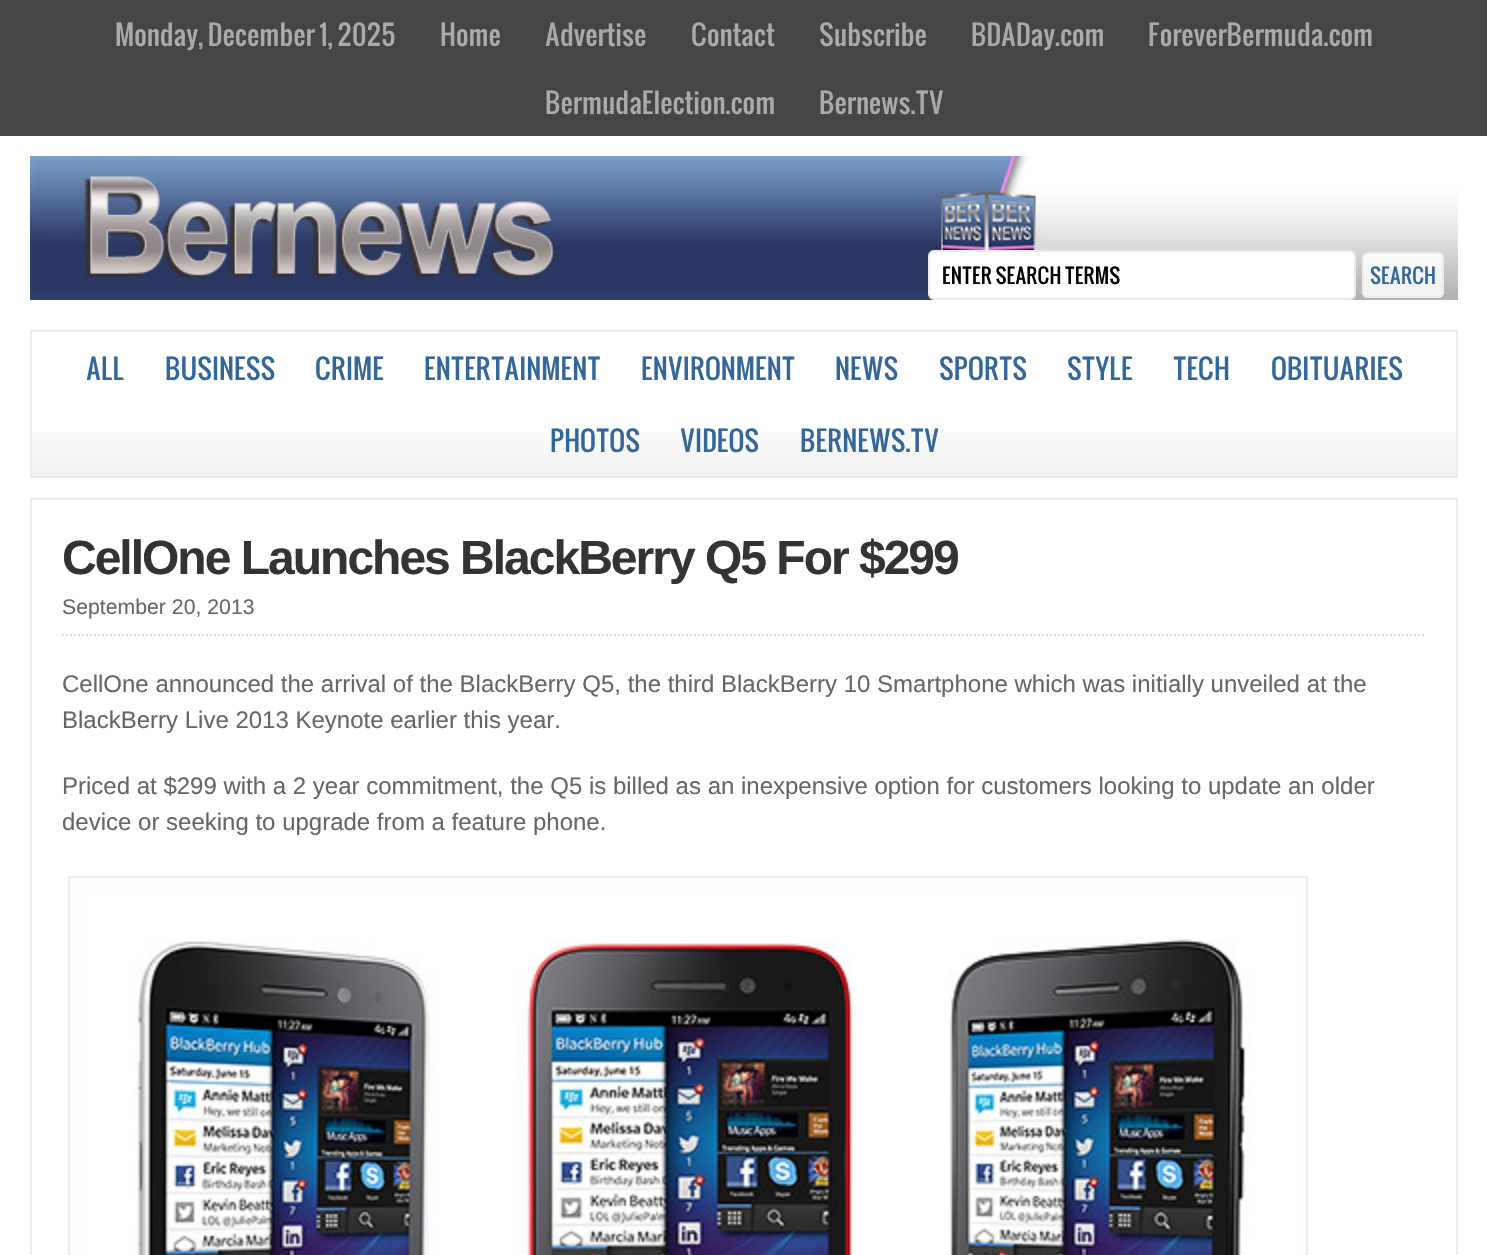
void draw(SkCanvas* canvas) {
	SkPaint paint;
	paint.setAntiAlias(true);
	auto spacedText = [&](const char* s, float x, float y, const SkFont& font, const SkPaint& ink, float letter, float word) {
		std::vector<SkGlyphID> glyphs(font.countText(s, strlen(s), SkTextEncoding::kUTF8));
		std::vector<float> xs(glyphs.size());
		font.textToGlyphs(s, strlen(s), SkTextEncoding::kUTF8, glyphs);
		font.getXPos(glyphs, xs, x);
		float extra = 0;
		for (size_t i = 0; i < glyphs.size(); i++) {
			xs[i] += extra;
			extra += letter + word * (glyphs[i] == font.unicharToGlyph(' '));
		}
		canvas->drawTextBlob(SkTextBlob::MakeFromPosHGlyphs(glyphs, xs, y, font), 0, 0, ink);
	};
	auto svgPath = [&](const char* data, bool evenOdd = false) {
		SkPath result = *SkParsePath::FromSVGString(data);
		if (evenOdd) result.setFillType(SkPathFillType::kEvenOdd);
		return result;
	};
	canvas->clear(0xff454545);
	SkFont f1(fontMgr->matchFamilyStyle("Oswald", SkFontStyle::Normal()), 26.75);
	f1.setSubpixel(true);
	paint.setColor(0xffaaaaaa);
	canvas->drawString("Monday, December 1, 2025", 115, 46, f1, paint);
	canvas->drawString("Home", 440, 46, f1, paint);
	canvas->drawString("Advertise", 545, 46, f1, paint);
	canvas->drawString("Contact", 691, 46, f1, paint);
	canvas->drawString("Subscribe", 819, 46, f1, paint);
	canvas->drawString("BDADay.com", 971, 46, f1, paint);
	canvas->drawString("ForeverBermuda.com", 1148, 46, f1, paint);
	canvas->drawString("BermudaElection.com", 545, 114, f1, paint);
	canvas->drawString("Bernews.TV", 819, 114, f1, paint);
	paint.setColor(0xffffffff);
	canvas->drawRect(SkRect::MakeXYWH(0, 136, 1487, 1119), paint);
	canvas->drawImageRect(SkImages::DeferredFromEncodedData(SkData::MakeFromFileName("img1.png")), SkRect::MakeXYWH(30, 156, 1428, 144), SkSamplingOptions());
	canvas->drawRoundRect(SkRect::MakeXYWH(929, 251, 426, 48), 5, 5, paint);
	paint.setStroke(true);
	paint.setStrokeWidth(2);
	paint.setColor(0xffebebeb);
	canvas->drawRoundRect(SkRect::MakeXYWH(929, 251, 426, 48), 5, 5, paint);
	SkFont f2(fontMgr->matchFamilyStyle("Oswald", SkFontStyle::Normal()), 20);
	f2.setSubpixel(true);
	paint.setStroke(false);
	paint.setColor(0xff000000);
	canvas->drawString("ENTER SEARCH TERMS", 942, 284, f2, paint);
	paint.setColor(0xffffffff);
	canvas->drawRoundRect(SkRect::MakeXYWH(1362, 252, 82, 46), 6, 6, paint);
	canvas->drawImageRect(SkImages::DeferredFromEncodedData(SkData::MakeFromFileName("img2.png")), SkRect::MakeXYWH(1362, 252, 82, 44), SkSamplingOptions());
	paint.setStroke(true);
	paint.setColor(0xffebebeb);
	canvas->drawRoundRect(SkRect::MakeXYWH(1363, 253, 80, 44), 5, 5, paint);
	paint.setStroke(false);
	paint.setColor(0xff336699);
	canvas->drawString("SEARCH", 1370, 284, f2, paint);
	canvas->drawImageRect(SkImages::DeferredFromEncodedData(SkData::MakeFromFileName("img3.png")), SkRect::MakeXYWH(32, 432, 1424, 44), SkSamplingOptions());
	paint.setStroke(true);
	paint.setColor(0xffebebeb);
	canvas->drawRect(SkRect::MakeXYWH(31, 331, 1426, 146), paint);
	paint.setStroke(false);
	paint.setColor(0xff336699);
	canvas->drawString("ALL", 86, 380, f1, paint);
	canvas->drawString("BUSINESS", 165, 380, f1, paint);
	canvas->drawString("CRIME", 315, 380, f1, paint);
	canvas->drawString("ENTERTAINMENT", 424, 380, f1, paint);
	canvas->drawString("ENVIRONMENT", 641, 380, f1, paint);
	canvas->drawString("NEWS", 835, 380, f1, paint);
	canvas->drawString("SPORTS", 939, 380, f1, paint);
	canvas->drawString("STYLE", 1067, 380, f1, paint);
	canvas->drawString("TECH", 1173, 380, f1, paint);
	canvas->drawString("OBITUARIES", 1271, 380, f1, paint);
	canvas->drawString("PHOTOS", 550, 452, f1, paint);
	canvas->drawString("VIDEOS", 680, 452, f1, paint);
	canvas->drawString("BERNEWS.TV", 800, 452, f1, paint);
	paint.setStroke(true);
	paint.setColor(0xffebebeb);
	canvas->drawRect(SkRect::MakeXYWH(31, 499, 1426, 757), paint);
	SkFont f3(fontMgr->matchFamilyStyle("Liberation Sans", SkFontStyle::Bold()), 48);
	f3.setSubpixel(true);
	paint.setStroke(false);
	paint.setColor(0xff333333);
	spacedText("CellOne Launches BlackBerry Q5 For $299", 62, 574, f3, paint, -2, 0);
	paint.setStroke(true);
	paint.setColor(0xffdddddd);
	paint.setPathEffect(SkDashPathEffect::Make({{2, 2}}, 0));
	canvas->drawPath(svgPath("M62 635H1426"), paint);
	paint.setPathEffect(nullptr);
	SkFont f4(fontMgr->matchFamilyStyle("Liberation Sans", SkFontStyle::Normal()), 21.25);
	f4.setSubpixel(true);
	paint.setStroke(false);
	paint.setColor(0xff666666);
	canvas->drawString("September 20, 2013", 62, 614, f4, paint);
	SkFont f5(fontMgr->matchFamilyStyle("Liberation Sans", SkFontStyle::Normal()), 24);
	f5.setSubpixel(true);
	canvas->drawString("CellOne announced the arrival of the BlackBerry Q5, the third BlackBerry 10 Smartphone which was initially unveiled at the", 62, 692, f5, paint);
	canvas->drawString("BlackBerry Live 2013 Keynote earlier this year.", 62, 728, f5, paint);
	canvas->drawString("Priced at $299 with a 2 year commitment, the Q5 is billed as an inexpensive option for customers looking to update an older", 62, 794, f5, paint);
	canvas->drawString("device or seeking to upgrade from a feature phone.", 62, 830, f5, paint);
	canvas->drawImageRect(SkImages::DeferredFromEncodedData(SkData::MakeFromFileName("img4.png")), SkRect::MakeXYWH(68, 876, 1240, 379), SkSamplingOptions());
}
